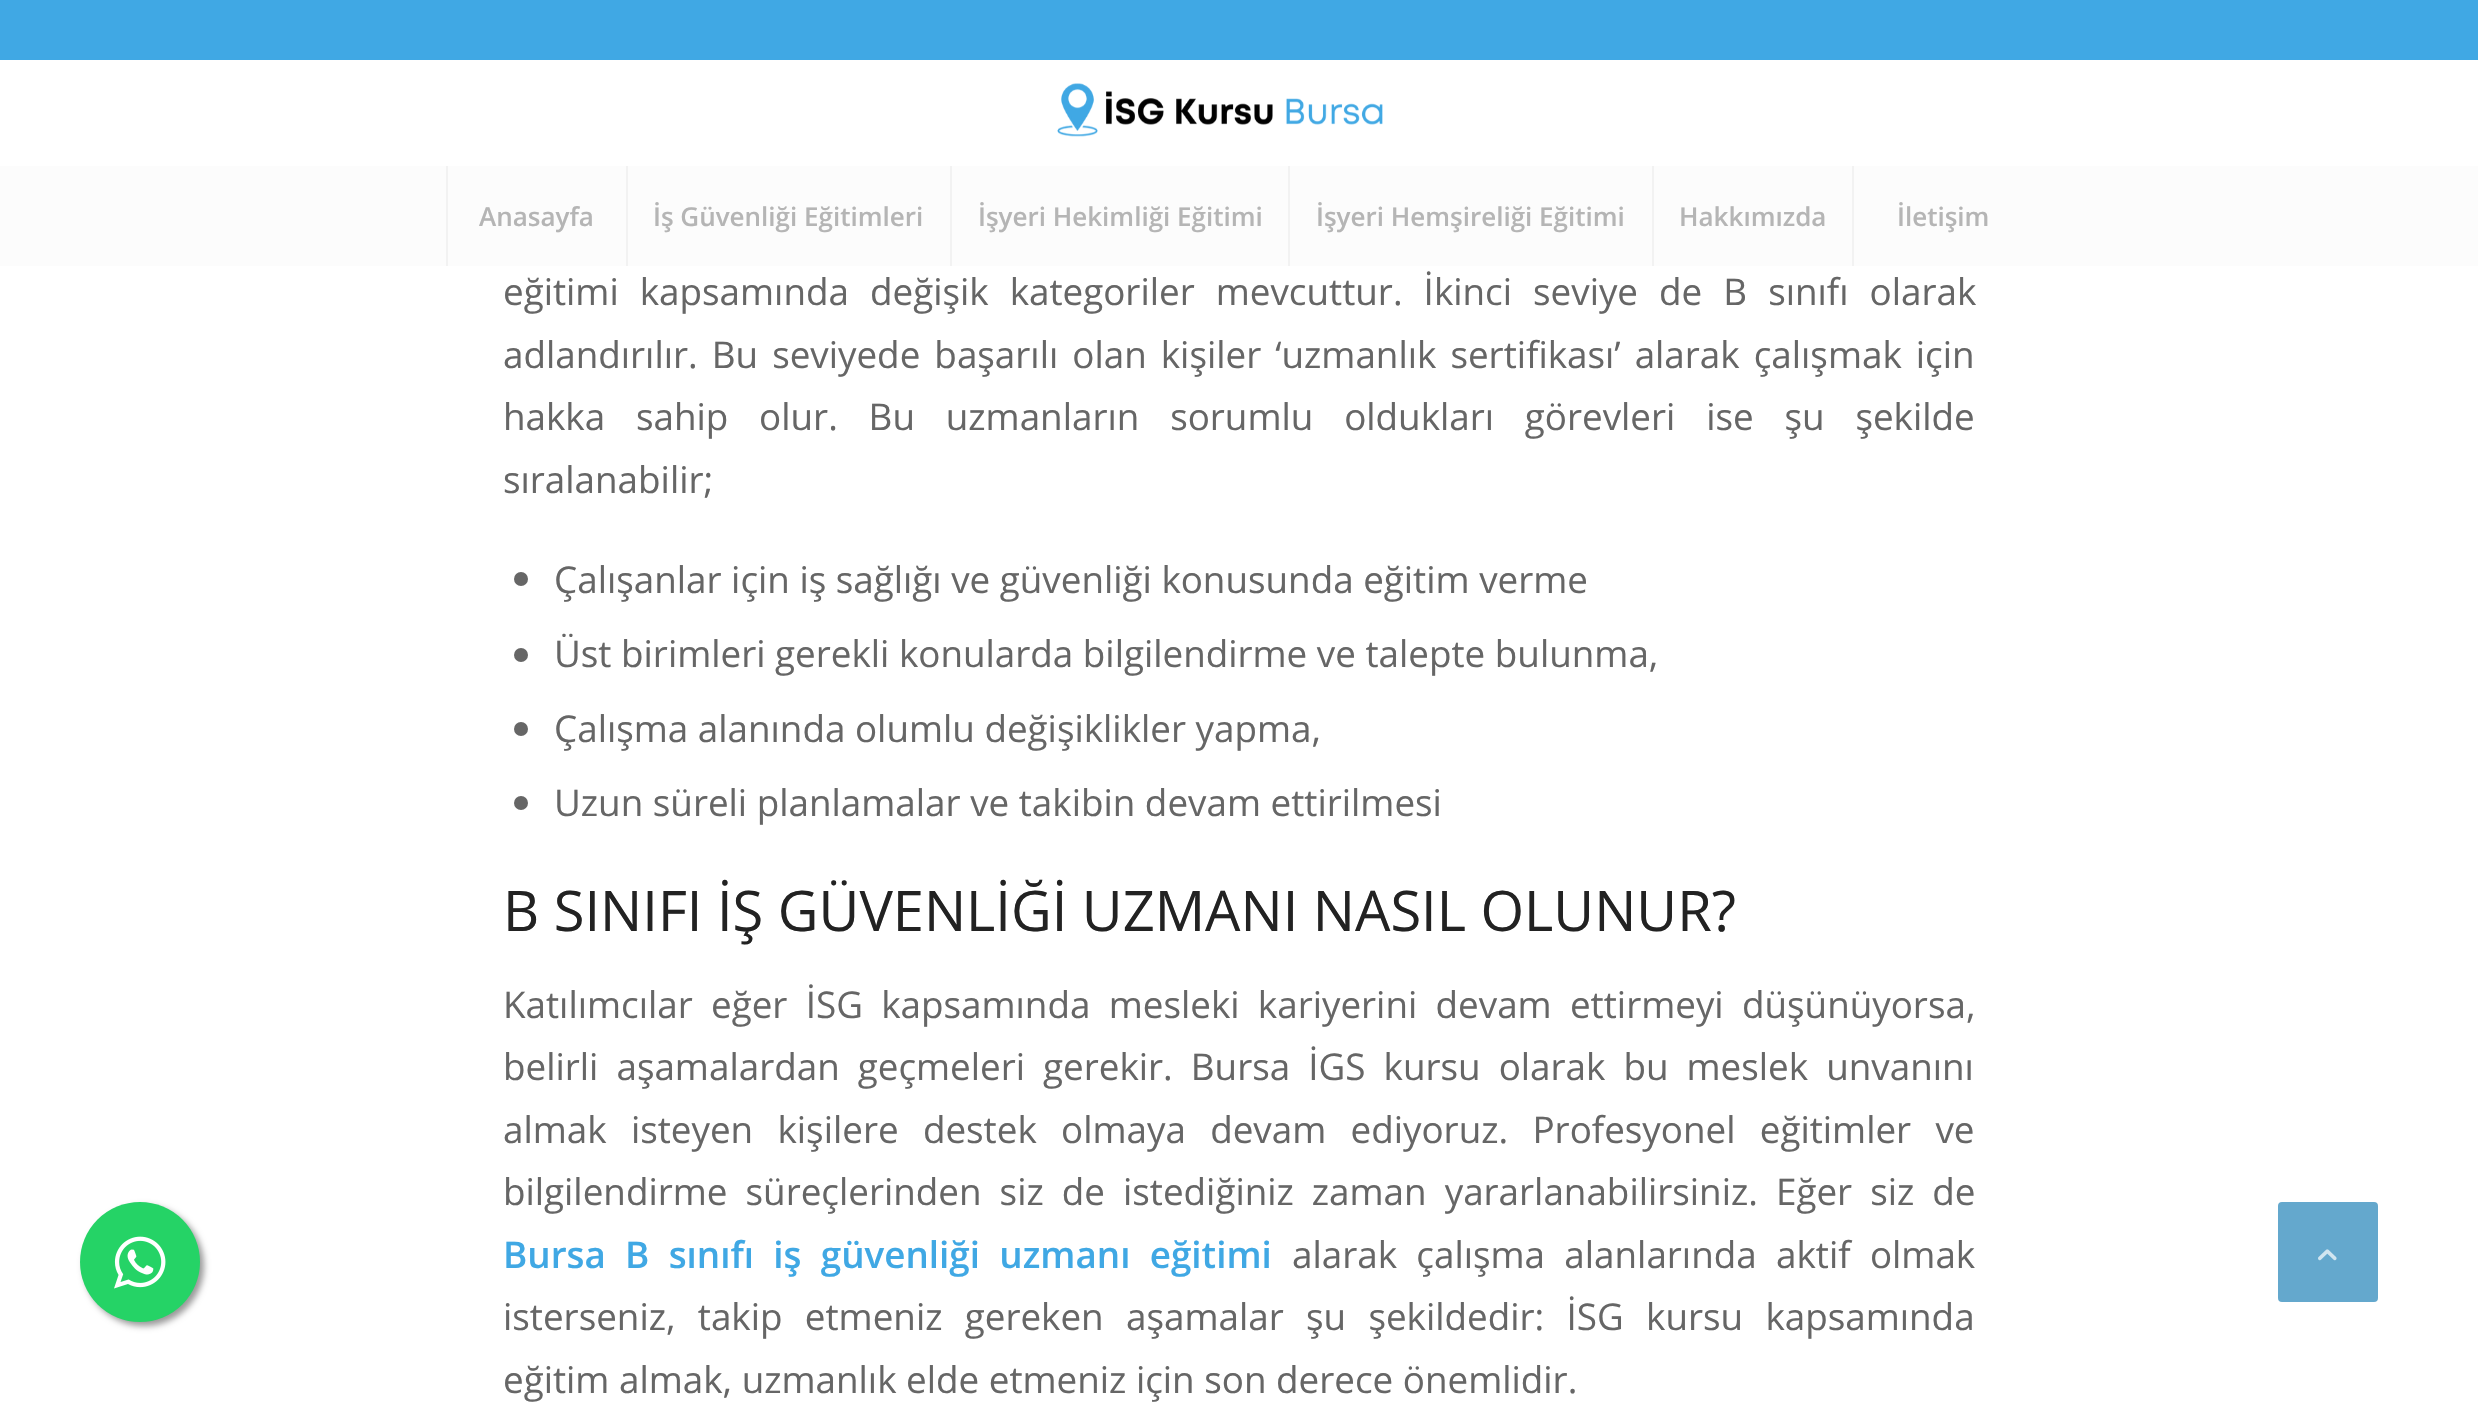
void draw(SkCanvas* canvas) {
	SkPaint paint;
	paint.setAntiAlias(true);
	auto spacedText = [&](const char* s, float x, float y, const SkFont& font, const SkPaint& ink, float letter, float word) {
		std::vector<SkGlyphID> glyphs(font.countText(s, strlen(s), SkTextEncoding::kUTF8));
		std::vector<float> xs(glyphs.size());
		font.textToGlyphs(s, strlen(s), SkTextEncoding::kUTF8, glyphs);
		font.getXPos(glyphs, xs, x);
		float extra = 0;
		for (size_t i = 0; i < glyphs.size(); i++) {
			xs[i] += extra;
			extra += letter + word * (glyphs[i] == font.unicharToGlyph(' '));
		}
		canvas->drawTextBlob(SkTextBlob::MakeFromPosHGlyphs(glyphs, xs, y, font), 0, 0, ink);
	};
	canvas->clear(0xffffffff);
	paint.setColor(0xff999999);
	paint.setMaskFilter(SkMaskFilter::MakeBlur(kNormal_SkBlurStyle, 3));
	canvas->drawRoundRect(SkRect::MakeXYWH(84, 1206, 120, 120), 60, 60, paint);
	paint.setMaskFilter(nullptr);
	paint.setColor(0xff25d366);
	canvas->drawCircle(140, 1262, 60, paint);
	canvas->drawImageRect(SkImages::DeferredFromEncodedData(SkData::MakeFromFileName("img1.png")), SkRect::MakeXYWH(114, 1236, 52, 53), SkSamplingOptions());
	paint.setColor(0xff40a8e4);
	canvas->drawRect(SkRect::MakeXYWH(0, 0, 2478, 60), paint);
	canvas->drawImageRect(SkImages::DeferredFromEncodedData(SkData::MakeFromFileName("img2.png")), SkRect::MakeXYWH(1057, 83, 326, 54), SkSamplingOptions());
	paint.setColor(0xfffcfcfc);
	canvas->drawRect(SkRect::MakeXYWH(0, 166, 2478, 100), paint);
	paint.setColor(0xfff2f2f2);
	canvas->drawRect(SkRect::MakeXYWH(446, 166, 2, 100), paint);
	SkFont f1(fontMgr->matchFamilyStyle("Open Sans", SkFontStyle(600, SkFontStyle::kNormal_Width, SkFontStyle::kUpright_Slant)), 26);
	f1.setSubpixel(true);
	paint.setColor(0xffb5b5b5);
	canvas->drawString("Anasayfa", 479, 226, f1, paint);
	paint.setColor(0xfff2f2f2);
	canvas->drawRect(SkRect::MakeXYWH(626, 166, 2, 100), paint);
	paint.setColor(0xffb5b5b5);
	canvas->drawString("İş Güvenliği Eğitimleri", 653, 226, f1, paint);
	paint.setColor(0xfff2f2f2);
	canvas->drawRect(SkRect::MakeXYWH(950, 166, 2, 100), paint);
	paint.setColor(0xffb5b5b5);
	canvas->drawString("İşyeri Hekimliği Eğitimi", 978, 226, f1, paint);
	paint.setColor(0xfff2f2f2);
	canvas->drawRect(SkRect::MakeXYWH(1288, 166, 2, 100), paint);
	paint.setColor(0xffb5b5b5);
	canvas->drawString("İşyeri Hemşireliği Eğitimi", 1316, 226, f1, paint);
	paint.setColor(0xfff2f2f2);
	canvas->drawRect(SkRect::MakeXYWH(1652, 166, 2, 100), paint);
	paint.setColor(0xffb5b5b5);
	canvas->drawString("Hakkımızda", 1679, 226, f1, paint);
	paint.setColor(0xfff2f2f2);
	canvas->drawRect(SkRect::MakeXYWH(1852, 166, 2, 100), paint);
	paint.setColor(0xffb5b5b5);
	canvas->drawString("İletişim", 1897, 226, f1, paint);
	SkFont f2(fontMgr->matchFamilyStyle("Open Sans", SkFontStyle::Normal()), 36.8);
	f2.setSubpixel(true);
	paint.setColor(0xff666666);
	spacedText("eğitimi kapsamında değişik kategoriler mevcuttur. İkinci seviye de B sınıfı olarak", 503, 305, f2, paint, 0, 11.5);
	spacedText("adlandırılır. Bu seviyede başarılı olan kişiler ‘uzmanlık sertifikası’ alarak çalışmak için", 503, 368, f2, paint, 0, 4.5);
	spacedText("hakka sahip olur. Bu uzmanların sorumlu oldukları görevleri ise şu şekilde", 503, 430, f2, paint, 0, 21.25);
	canvas->drawString("sıralanabilir;", 503, 493, f2, paint);
	canvas->drawCircle(521, 579, 7, paint);
	canvas->drawString("Çalışanlar için iş sağlığı ve güvenliği konusunda eğitim verme", 554, 593, f2, paint);
	canvas->drawCircle(521, 655, 7, paint);
	canvas->drawString("Üst birimleri gerekli konularda bilgilendirme ve talepte bulunma,", 554, 667, f2, paint);
	canvas->drawCircle(521, 729, 7, paint);
	canvas->drawString("Çalışma alanında olumlu değişiklikler yapma,", 554, 742, f2, paint);
	canvas->drawCircle(521, 803, 7, paint);
	canvas->drawString("Uzun süreli planlamalar ve takibin devam ettirilmesi", 554, 816, f2, paint);
	SkFont f3(fontMgr->matchFamilyStyle("Open Sans", SkFontStyle::Normal()), 56);
	f3.setSubpixel(true);
	paint.setColor(0xff222222);
	canvas->drawString("B SINIFI İŞ GÜVENLİĞİ UZMANI NASIL OLUNUR?", 503, 931, f3, paint);
	paint.setColor(0xff666666);
	spacedText("Katılımcılar eğer İSG kapsamında mesleki kariyerini devam ettirmeyi düşünüyorsa,", 503, 1018, f2, paint, 0, 8.75);
	spacedText("belirli aşamalardan geçmeleri gerekir. Bursa İGS kursu olarak bu meslek unvanını", 503, 1080, f2, paint, 0, 8.5);
	spacedText("almak isteyen kişilere destek olmaya devam ediyoruz. Profesyonel eğitimler ve", 503, 1143, f2, paint, 0, 14.75);
	spacedText("bilgilendirme süreçlerinden siz de istediğiniz zaman yararlanabilirsiniz. Eğer siz de", 503, 1205, f2, paint, 0, 8.5);
	SkFont f4(fontMgr->matchFamilyStyle("Open Sans", SkFontStyle(600, SkFontStyle::kNormal_Width, SkFontStyle::kUpright_Slant)), 36.8);
	f4.setSubpixel(true);
	paint.setColor(0xff40a8e4);
	spacedText("Bursa B sınıfı iş güvenliği uzmanı eğitimi", 503, 1268, f4, paint, 0, 9.75);
	paint.setColor(0xff666666);
	spacedText("alarak çalışma alanlarında aktif olmak", 1292, 1268, f2, paint, 0, 9.75);
	spacedText("isterseniz, takip etmeniz gereken aşamalar şu şekildedir: İSG kursu kapsamında", 503, 1330, f2, paint, 0, 12.75);
	canvas->drawString("eğitim almak, uzmanlık elde etmeniz için son derece önemlidir.", 503, 1393, f2, paint);
	paint.setColor(0xff64a8cd);
	canvas->drawRoundRect(SkRect::MakeXYWH(2279, 1203, 98, 98), 3, 3, paint);
	paint.setStroke(true);
	paint.setStrokeWidth(2);
	canvas->drawRoundRect(SkRect::MakeXYWH(2279, 1203, 98, 98), 3, 3, paint);
	canvas->drawImageRect(SkImages::DeferredFromEncodedData(SkData::MakeFromFileName("img3.png")), SkRect::MakeXYWH(2318, 1249, 19, 12), SkSamplingOptions());
}
